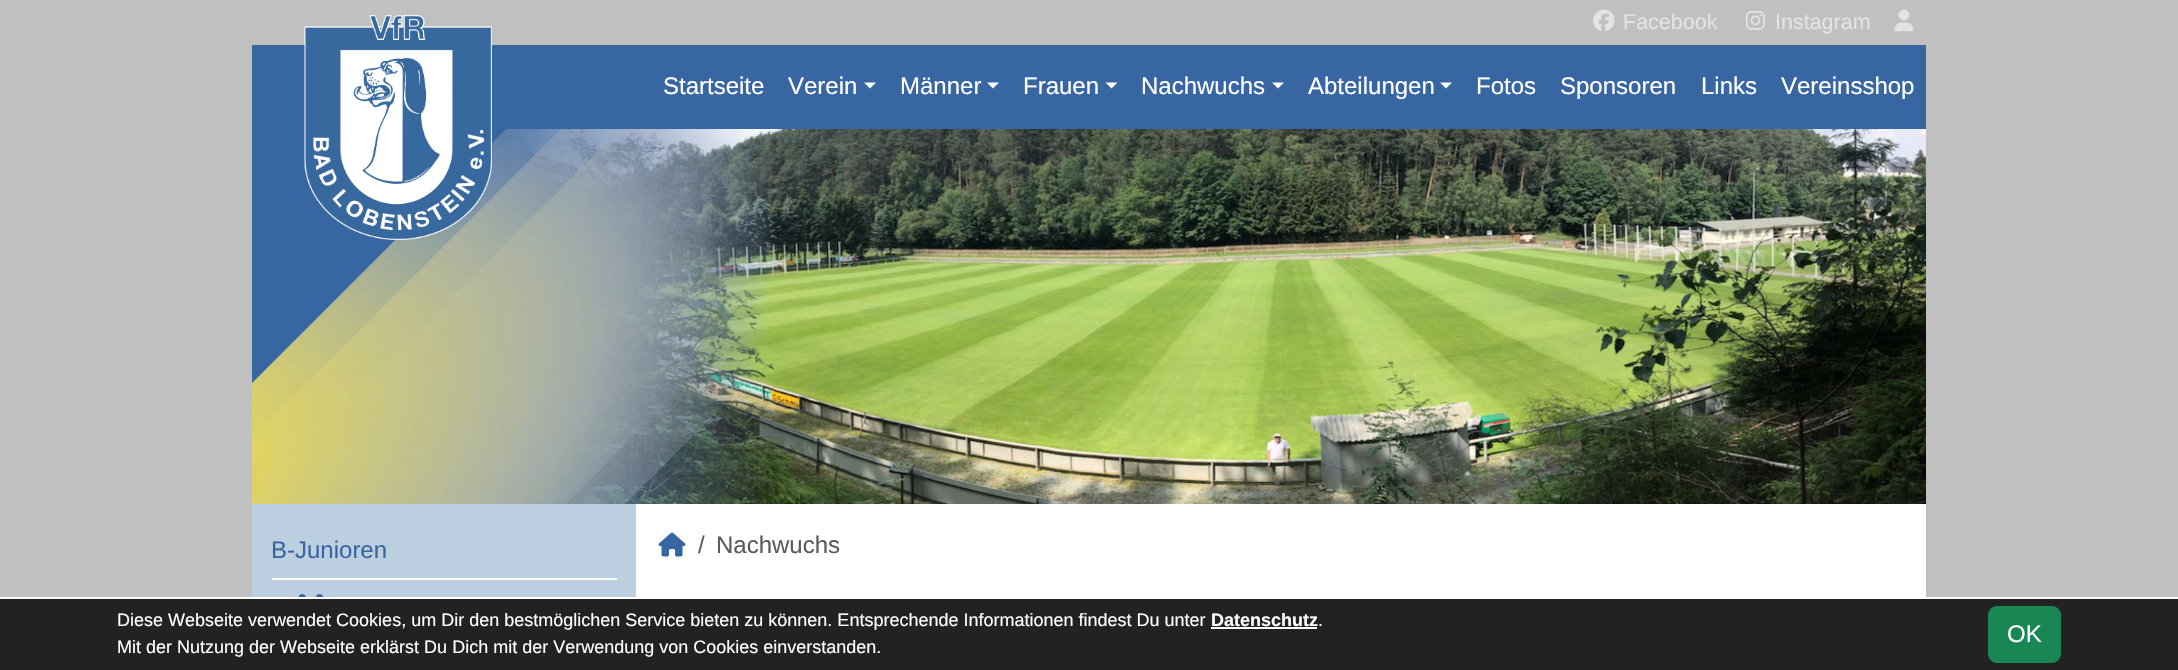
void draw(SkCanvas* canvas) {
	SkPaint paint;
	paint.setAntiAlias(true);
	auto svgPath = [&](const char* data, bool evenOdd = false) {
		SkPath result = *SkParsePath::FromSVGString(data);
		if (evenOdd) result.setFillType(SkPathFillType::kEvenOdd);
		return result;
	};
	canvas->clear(0xffc0c0c0);
	paint.setColor(0xff3866a3);
	canvas->drawRect(SkRect::MakeXYWH(252, 45, 1674, 84), paint);
	canvas->drawImageRect(SkImages::DeferredFromEncodedData(SkData::MakeFromFileName("img5.png")), SkRect::MakeXYWH(252, 129, 1674, 375), SkSamplingOptions());
	canvas->drawImageRect(SkImages::DeferredFromEncodedData(SkData::MakeFromFileName("img1.png")), SkRect::MakeXYWH(304, 15, 188, 225), SkSamplingOptions());
	canvas->drawImageRect(SkImages::DeferredFromEncodedData(SkData::MakeFromFileName("img2.png")), SkRect::MakeXYWH(1593, 9, 22, 22), SkSamplingOptions());
	SkFont f1(fontMgr->matchFamilyStyle("Liberation Sans", SkFontStyle::Normal()), 21.5);
	f1.setSubpixel(true);
	paint.setColor(0xffe3e3e3);
	canvas->drawString("Facebook", 1623, 29, f1, paint);
	canvas->drawImageRect(SkImages::DeferredFromEncodedData(SkData::MakeFromFileName("img3.png")), SkRect::MakeXYWH(1746, 11, 19, 19), SkSamplingOptions());
	canvas->drawString("Instagram", 1775, 29, f1, paint);
	canvas->drawImageRect(SkImages::DeferredFromEncodedData(SkData::MakeFromFileName("img4.png")), SkRect::MakeXYWH(1894, 9, 20, 23), SkSamplingOptions());
	SkFont f2(fontMgr->matchFamilyStyle("Liberation Sans", SkFontStyle::Normal()), 24);
	f2.setSubpixel(true);
	paint.setColor(0xffffffff);
	canvas->drawString("Startseite", 663, 94, f2, paint);
	canvas->drawString("Verein", 788, 94, f2, paint);
	canvas->drawPath(svgPath("M864 82.5H876L870 88.5Z"), paint);
	canvas->drawString("Männer", 900, 94, f2, paint);
	canvas->drawPath(svgPath("M987 82.5H999L993 88.5Z"), paint);
	canvas->drawString("Frauen", 1023, 94, f2, paint);
	canvas->drawPath(svgPath("M1105.5 82.5H1117.5L1111.5 88.5Z"), paint);
	canvas->drawString("Nachwuchs", 1141, 94, f2, paint);
	canvas->drawPath(svgPath("M1272 82.5H1284L1278 88.5Z"), paint);
	canvas->drawString("Abteilungen", 1308, 94, f2, paint);
	canvas->drawPath(svgPath("M1440 82.5H1452L1446 88.5Z"), paint);
	canvas->drawString("Fotos", 1476, 94, f2, paint);
	canvas->drawString("Sponsoren", 1560, 94, f2, paint);
	canvas->drawString("Links", 1701, 94, f2, paint);
	canvas->drawString("Vereinsshop", 1781, 94, f2, paint);
	canvas->drawRect(SkRect::MakeXYWH(636, 504, 1290, 93), paint);
	paint.setColor(0xffbccfe1);
	canvas->drawRect(SkRect::MakeXYWH(252, 504, 384, 93), paint);
	paint.setColor(0xffffffff);
	canvas->drawRect(SkRect::MakeXYWH(272, 578, 345, 2), paint);
	paint.setColor(0xff3866a3);
	canvas->drawString("B-Junioren", 271, 558, f2, paint);
	canvas->drawImageRect(SkImages::DeferredFromEncodedData(SkData::MakeFromFileName("img6.png")), SkRect::MakeXYWH(298, 594, 26, 3), SkSamplingOptions());
	canvas->drawImageRect(SkImages::DeferredFromEncodedData(SkData::MakeFromFileName("img7.png")), SkRect::MakeXYWH(658, 532, 28, 25), SkSamplingOptions());
	paint.setColor(0xff595c5f);
	canvas->drawString("/", 698, 553, f2, paint);
	canvas->drawString("Nachwuchs", 716, 553, f2, paint);
	paint.setColor(0xff222222);
	canvas->drawRect(SkRect::MakeXYWH(0, 599, 2178, 71), paint);
	paint.setColor(0xffffffff);
	canvas->drawRect(SkRect::MakeXYWH(0, 597, 2178, 2), paint);
	SkFont f3(fontMgr->matchFamilyStyle("Liberation Sans", SkFontStyle::Normal()), 18);
	f3.setSubpixel(true);
	canvas->drawString("Diese Webseite verwendet Cookies, um Dir den bestmöglichen Service bieten zu können. Entsprechende Informationen findest Du unter", 117, 626, f3, paint);
	SkFont f4(fontMgr->matchFamilyStyle("Liberation Sans", SkFontStyle::Bold()), 18);
	f4.setSubpixel(true);
	canvas->drawString("Datenschutz", 1211, 626, f4, paint);
	canvas->drawRect(SkRect::MakeXYWH(1211, 627, 106, 2), paint);
	canvas->drawString(".", 1318, 626, f3, paint);
	canvas->drawString("Mit der Nutzung der Webseite erklärst Du Dich mit der Verwendung von Cookies einverstanden.", 117, 653, f3, paint);
	paint.setColor(0xff198754);
	canvas->drawRoundRect(SkRect::MakeXYWH(1989, 607, 71, 55), 8, 8, paint);
	paint.setStroke(true);
	paint.setStrokeWidth(2);
	canvas->drawRoundRect(SkRect::MakeXYWH(1989, 607, 71, 55), 8, 8, paint);
	paint.setStroke(false);
	paint.setColor(0xffffffff);
	canvas->drawString("OK", 2007, 642, f2, paint);
}
